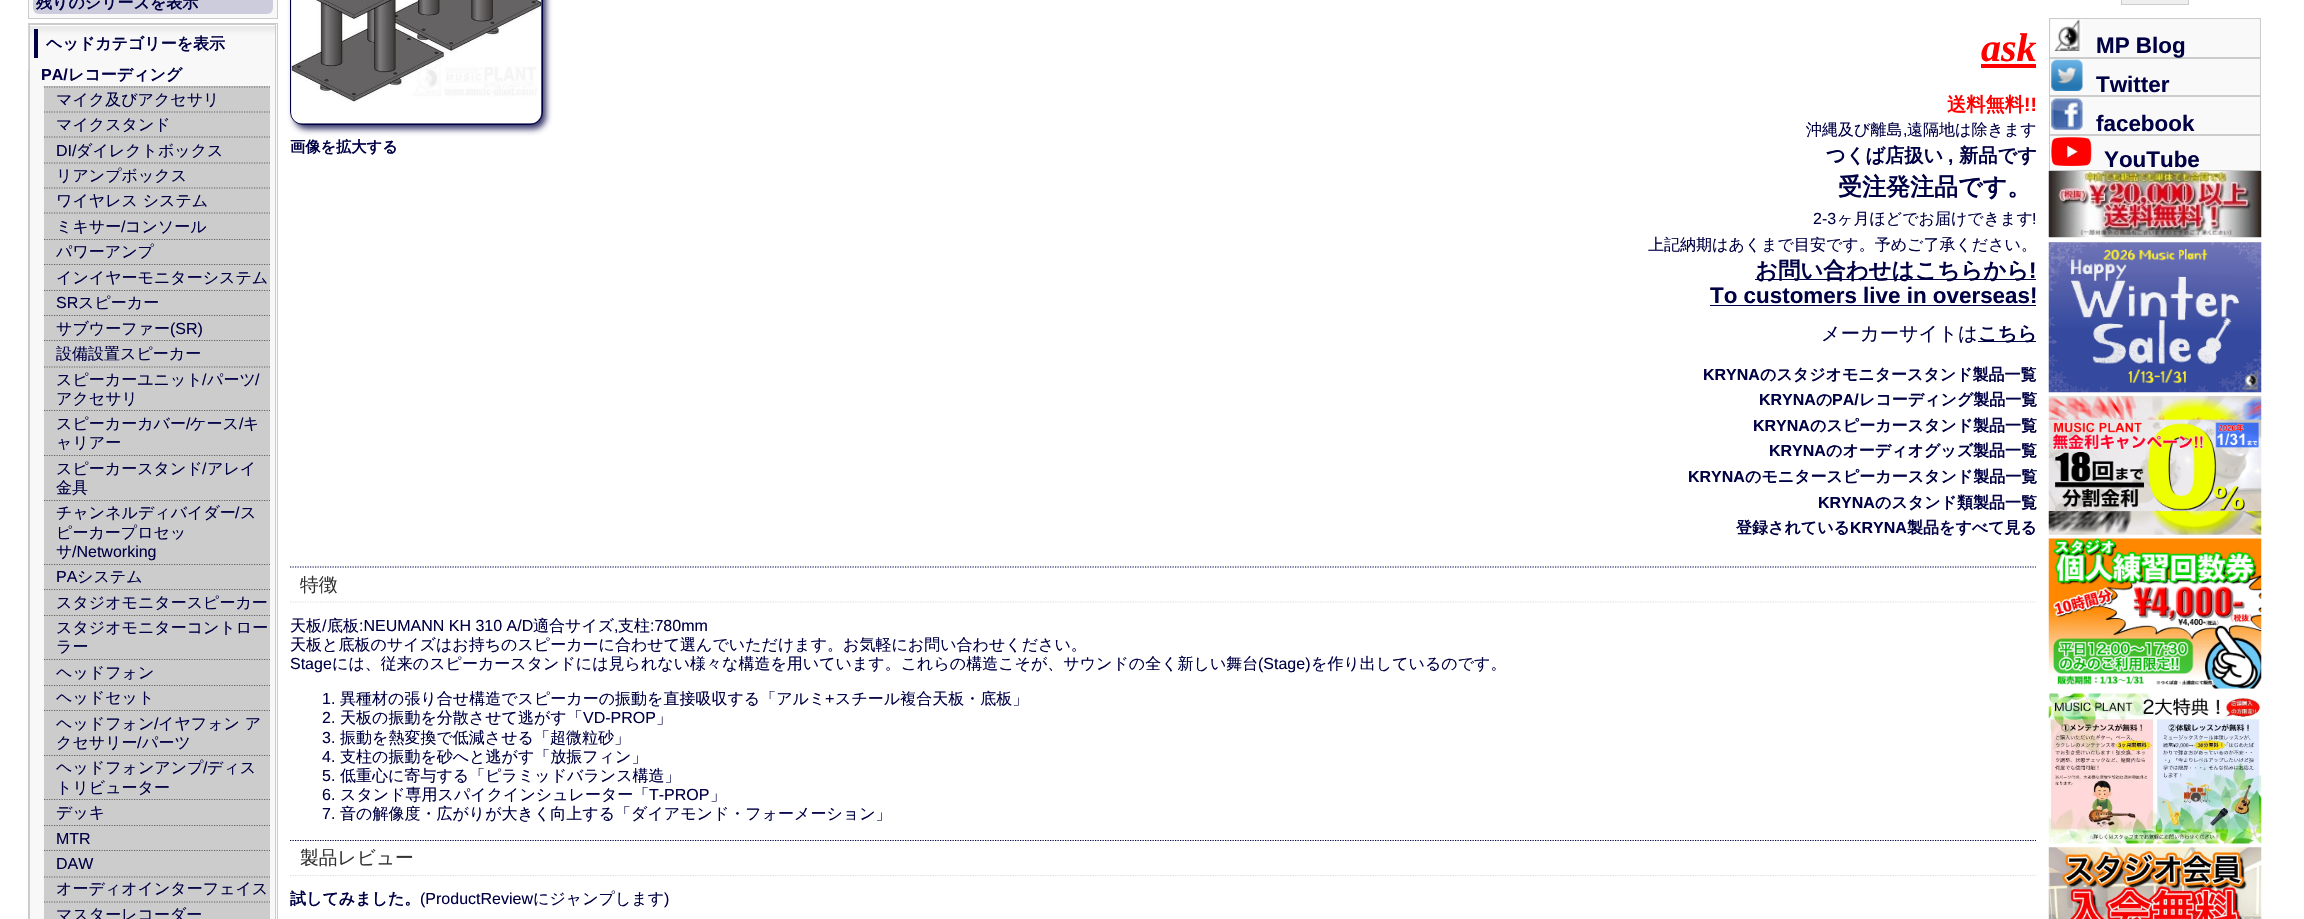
void draw(SkCanvas* canvas) {
	SkPaint paint;
	paint.setAntiAlias(true);
	auto svgPath = [&](const char* data, bool evenOdd = false) {
		SkPath result = *SkParsePath::FromSVGString(data);
		if (evenOdd) result.setFillType(SkPathFillType::kEvenOdd);
		return result;
	};
	canvas->clear(0xffffffff);
	paint.setColor(0xfff8f8f8);
	canvas->drawRect(SkRect::MakeXYWH(28.5, -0.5, 249, 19), paint);
	paint.setStroke(true);
	paint.setStrokeWidth(1);
	paint.setColor(0xffcccccc);
	canvas->drawRect(SkRect::MakeXYWH(28.5, -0.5, 249, 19), paint);
	paint.setStroke(false);
	paint.setColor(0xffccccdd);
	canvas->drawRoundRect(SkRect::MakeXYWH(33, -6, 240, 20), 6, 6, paint);
	SkFont f1(fontMgr->matchFamilyStyle("WenQuanYi Zen Hei", SkFontStyle::Bold()), 16);
	f1.setSubpixel(true);
	paint.setColor(0xff000044);
	canvas->drawString("残りのシリーズを表示", 36, 8, f1, paint);
	paint.setColor(0xfffcfcfc);
	canvas->drawRect(SkRect::MakeXYWH(276, 24, 1, 895), paint);
	paint.setStroke(true);
	paint.setColor(0xffcccccc);
	canvas->drawRect(SkRect::MakeXYWH(28.5, 23.5, 249, 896), paint);
	paint.setStroke(false);
	paint.setColor(0xfff8f8f8);
	canvas->drawRect(SkRect::MakeXYWH(30, 69, 245, 850), paint);
	canvas->drawImageRect(SkImages::DeferredFromEncodedData(SkData::MakeFromFileName("img1.png")), SkRect::MakeXYWH(28, 25, 249, 45), SkSamplingOptions());
	paint.setStroke(true);
	paint.setColor(0xffcccccc);
	canvas->drawRect(SkRect::MakeXYWH(29.5, 24.5, 246, 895), paint);
	paint.setStroke(false);
	paint.setColor(0xff000044);
	canvas->drawRect(SkRect::MakeXYWH(34, 29, 4, 29), paint);
	canvas->drawString("ヘッドカテゴリーを表示", 46, 49, f1, paint);
	SkFont f2(fontMgr->matchFamilyStyle("Liberation Sans", SkFontStyle::Bold()), 16);
	f2.setSubpixel(true);
	canvas->drawString("PA/", 41, 80, f2, paint);
	canvas->drawString("レコーディング", 68, 80, f1, paint);
	paint.setColor(0xffcccccc);
	canvas->drawRect(SkRect::MakeXYWH(44, 86, 226, 833), paint);
	paint.setStroke(true);
	paint.setStrokeWidth(1.2);
	paint.setColor(0xff666666);
	paint.setPathEffect(SkDashPathEffect::Make({{1.25f, 1.25f}}, 0));
	canvas->drawPath(svgPath("M44 87H270"), paint);
	paint.setPathEffect(nullptr);
	SkFont f3(fontMgr->matchFamilyStyle("WenQuanYi Zen Hei", SkFontStyle(500, SkFontStyle::kNormal_Width, SkFontStyle::kUpright_Slant)), 16);
	f3.setSubpixel(true);
	paint.setStroke(false);
	paint.setColor(0xff000044);
	canvas->drawString("マイク及びアクセサリ", 56, 105, f3, paint);
	paint.setStroke(true);
	paint.setColor(0xff666666);
	paint.setPathEffect(SkDashPathEffect::Make({{1.25f, 1.25f}}, 0));
	canvas->drawPath(svgPath("M44 112H270"), paint);
	paint.setPathEffect(nullptr);
	paint.setStroke(false);
	paint.setColor(0xff000044);
	canvas->drawString("マイクスタンド", 56, 130, f3, paint);
	paint.setStroke(true);
	paint.setColor(0xff666666);
	paint.setPathEffect(SkDashPathEffect::Make({{1.25f, 1.25f}}, 0));
	canvas->drawPath(svgPath("M44 137H270"), paint);
	paint.setPathEffect(nullptr);
	SkFont f4(fontMgr->matchFamilyStyle("Liberation Sans", SkFontStyle::Normal()), 16);
	f4.setSubpixel(true);
	paint.setStroke(false);
	paint.setColor(0xff000044);
	canvas->drawString("DI/", 56, 156, f4, paint);
	canvas->drawString("ダイレクトボックス", 76, 156, f3, paint);
	paint.setStroke(true);
	paint.setColor(0xff666666);
	paint.setPathEffect(SkDashPathEffect::Make({{1.25f, 1.25f}}, 0));
	canvas->drawPath(svgPath("M44 163H270"), paint);
	paint.setPathEffect(nullptr);
	paint.setStroke(false);
	paint.setColor(0xff000044);
	canvas->drawString("リアンプボックス", 56, 181, f3, paint);
	paint.setStroke(true);
	paint.setColor(0xff666666);
	paint.setPathEffect(SkDashPathEffect::Make({{1.25f, 1.25f}}, 0));
	canvas->drawPath(svgPath("M44 188H270"), paint);
	paint.setPathEffect(nullptr);
	paint.setStroke(false);
	paint.setColor(0xff000044);
	canvas->drawString("ワイヤレス システム", 56, 206, f3, paint);
	paint.setStroke(true);
	paint.setColor(0xff666666);
	paint.setPathEffect(SkDashPathEffect::Make({{1.25f, 1.25f}}, 0));
	canvas->drawPath(svgPath("M44 213H270"), paint);
	paint.setPathEffect(nullptr);
	paint.setStroke(false);
	paint.setColor(0xff000044);
	canvas->drawString("ミキサー", 56, 232, f3, paint);
	canvas->drawString("/", 121, 232, f4, paint);
	canvas->drawString("コンソール", 125, 232, f3, paint);
	paint.setStroke(true);
	paint.setColor(0xff666666);
	paint.setPathEffect(SkDashPathEffect::Make({{1.25f, 1.25f}}, 0));
	canvas->drawPath(svgPath("M44 239.5H270"), paint);
	paint.setPathEffect(nullptr);
	paint.setStroke(false);
	paint.setColor(0xff000044);
	canvas->drawString("パワーアンプ", 56, 257, f3, paint);
	paint.setStroke(true);
	paint.setColor(0xff666666);
	paint.setPathEffect(SkDashPathEffect::Make({{1.25f, 1.25f}}, 0));
	canvas->drawPath(svgPath("M44 264.5H270"), paint);
	paint.setPathEffect(nullptr);
	paint.setStroke(false);
	paint.setColor(0xff000044);
	canvas->drawString("インイヤーモニターシステム", 56, 283, f3, paint);
	paint.setStroke(true);
	paint.setColor(0xff666666);
	paint.setPathEffect(SkDashPathEffect::Make({{1.25f, 1.25f}}, 0));
	canvas->drawPath(svgPath("M44 290.5H270"), paint);
	paint.setPathEffect(nullptr);
	paint.setStroke(false);
	paint.setColor(0xff000044);
	canvas->drawString("SR", 56, 308, f4, paint);
	canvas->drawString("スピーカー", 78, 308, f3, paint);
	paint.setStroke(true);
	paint.setColor(0xff666666);
	paint.setPathEffect(SkDashPathEffect::Make({{1.25f, 1.25f}}, 0));
	canvas->drawPath(svgPath("M44 315.5H270"), paint);
	paint.setPathEffect(nullptr);
	paint.setStroke(false);
	paint.setColor(0xff000044);
	canvas->drawString("サブウーファー", 56, 334, f3, paint);
	canvas->drawString("(SR)", 170, 334, f4, paint);
	paint.setStroke(true);
	paint.setColor(0xff666666);
	paint.setPathEffect(SkDashPathEffect::Make({{1.25f, 1.25f}}, 0));
	canvas->drawPath(svgPath("M44 340.5H270"), paint);
	paint.setPathEffect(nullptr);
	paint.setStroke(false);
	paint.setColor(0xff000044);
	canvas->drawString("設備設置スピーカー", 56, 359, f3, paint);
	paint.setStroke(true);
	paint.setColor(0xff666666);
	paint.setPathEffect(SkDashPathEffect::Make({{1.25f, 1.25f}}, 0));
	canvas->drawPath(svgPath("M44 367H270"), paint);
	paint.setPathEffect(nullptr);
	paint.setStroke(false);
	paint.setColor(0xff000044);
	canvas->drawString("スピーカーユニット", 56, 385, f3, paint);
	canvas->drawString("/", 202, 385, f4, paint);
	canvas->drawString("パーツ", 207, 385, f3, paint);
	canvas->drawString("/", 255, 385, f4, paint);
	canvas->drawString("アクセサリ", 56, 404, f3, paint);
	paint.setStroke(true);
	paint.setColor(0xff666666);
	paint.setPathEffect(SkDashPathEffect::Make({{1.25f, 1.25f}}, 0));
	canvas->drawPath(svgPath("M44 410.5H270"), paint);
	paint.setPathEffect(nullptr);
	paint.setStroke(false);
	paint.setColor(0xff000044);
	canvas->drawString("スピーカーカバー", 56, 429, f3, paint);
	canvas->drawString("/", 186, 429, f4, paint);
	canvas->drawString("ケース", 190, 429, f3, paint);
	canvas->drawString("/", 239, 429, f4, paint);
	canvas->drawString("キ", 243, 429, f3, paint);
	canvas->drawString("ャリアー", 56, 448, f3, paint);
	paint.setStroke(true);
	paint.setColor(0xff666666);
	paint.setPathEffect(SkDashPathEffect::Make({{1.25f, 1.25f}}, 0));
	canvas->drawPath(svgPath("M44 455.5H270"), paint);
	paint.setPathEffect(nullptr);
	paint.setStroke(false);
	paint.setColor(0xff000044);
	canvas->drawString("スピーカースタンド", 56, 474, f3, paint);
	canvas->drawString("/", 202, 474, f4, paint);
	canvas->drawString("アレイ", 207, 474, f3, paint);
	canvas->drawString("金具", 56, 493, f3, paint);
	paint.setStroke(true);
	paint.setColor(0xff666666);
	paint.setPathEffect(SkDashPathEffect::Make({{1.25f, 1.25f}}, 0));
	canvas->drawPath(svgPath("M44 500.5H270"), paint);
	paint.setPathEffect(nullptr);
	paint.setStroke(false);
	paint.setColor(0xff000044);
	canvas->drawString("チャンネルディバイダー", 56, 518, f3, paint);
	canvas->drawString("/", 235, 518, f4, paint);
	canvas->drawString("ス", 240, 518, f3, paint);
	canvas->drawString("ピーカープロセッ", 56, 538, f3, paint);
	canvas->drawString("サ", 56, 557, f3, paint);
	canvas->drawString("/Networking", 72, 557, f4, paint);
	paint.setStroke(true);
	paint.setColor(0xff666666);
	paint.setPathEffect(SkDashPathEffect::Make({{1.25f, 1.25f}}, 0));
	canvas->drawPath(svgPath("M44 564.5H270"), paint);
	paint.setPathEffect(nullptr);
	paint.setStroke(false);
	paint.setColor(0xff000044);
	canvas->drawString("PA", 56, 582, f4, paint);
	canvas->drawString("システム", 77, 582, f3, paint);
	paint.setStroke(true);
	paint.setColor(0xff666666);
	paint.setPathEffect(SkDashPathEffect::Make({{1.25f, 1.25f}}, 0));
	canvas->drawPath(svgPath("M44 589.5H270"), paint);
	paint.setPathEffect(nullptr);
	paint.setStroke(false);
	paint.setColor(0xff000044);
	canvas->drawString("スタジオモニタースピーカー", 56, 608, f3, paint);
	paint.setStroke(true);
	paint.setColor(0xff666666);
	paint.setPathEffect(SkDashPathEffect::Make({{1.25f, 1.25f}}, 0));
	canvas->drawPath(svgPath("M44 615.5H270"), paint);
	paint.setPathEffect(nullptr);
	paint.setStroke(false);
	paint.setColor(0xff000044);
	canvas->drawString("スタジオモニターコントロー", 56, 633, f3, paint);
	canvas->drawString("ラー", 56, 652, f3, paint);
	paint.setStroke(true);
	paint.setColor(0xff666666);
	paint.setPathEffect(SkDashPathEffect::Make({{1.25f, 1.25f}}, 0));
	canvas->drawPath(svgPath("M44 659.5H270"), paint);
	paint.setPathEffect(nullptr);
	paint.setStroke(false);
	paint.setColor(0xff000044);
	canvas->drawString("ヘッドフォン", 56, 678, f3, paint);
	paint.setStroke(true);
	paint.setColor(0xff666666);
	paint.setPathEffect(SkDashPathEffect::Make({{1.25f, 1.25f}}, 0));
	canvas->drawPath(svgPath("M44 685.5H270"), paint);
	paint.setPathEffect(nullptr);
	paint.setStroke(false);
	paint.setColor(0xff000044);
	canvas->drawString("ヘッドセット", 56, 703, f3, paint);
	paint.setStroke(true);
	paint.setColor(0xff666666);
	paint.setPathEffect(SkDashPathEffect::Make({{1.25f, 1.25f}}, 0));
	canvas->drawPath(svgPath("M44 710.5H270"), paint);
	paint.setPathEffect(nullptr);
	paint.setStroke(false);
	paint.setColor(0xff000044);
	canvas->drawString("ヘッドフォン", 56, 729, f3, paint);
	canvas->drawString("/", 154, 729, f4, paint);
	canvas->drawString("イヤフォン ア", 158, 729, f3, paint);
	canvas->drawString("クセサリー", 56, 748, f3, paint);
	canvas->drawString("/", 137, 748, f4, paint);
	canvas->drawString("パーツ", 142, 748, f3, paint);
	paint.setStroke(true);
	paint.setColor(0xff666666);
	paint.setPathEffect(SkDashPathEffect::Make({{1.25f, 1.25f}}, 0));
	canvas->drawPath(svgPath("M44 755.5H270"), paint);
	paint.setPathEffect(nullptr);
	paint.setStroke(false);
	paint.setColor(0xff000044);
	canvas->drawString("ヘッドフォンアンプ", 56, 773, f3, paint);
	canvas->drawString("/", 203, 773, f4, paint);
	canvas->drawString("ディス", 207, 773, f3, paint);
	canvas->drawString("トリビューター", 56, 793, f3, paint);
	paint.setStroke(true);
	paint.setColor(0xff666666);
	paint.setPathEffect(SkDashPathEffect::Make({{1.25f, 1.25f}}, 0));
	canvas->drawPath(svgPath("M44 799.5H270"), paint);
	paint.setPathEffect(nullptr);
	paint.setStroke(false);
	paint.setColor(0xff000044);
	canvas->drawString("デッキ", 56, 818, f3, paint);
	paint.setStroke(true);
	paint.setColor(0xff666666);
	paint.setPathEffect(SkDashPathEffect::Make({{1.25f, 1.25f}}, 0));
	canvas->drawPath(svgPath("M44 825.5H270"), paint);
	paint.setPathEffect(nullptr);
	paint.setStroke(false);
	paint.setColor(0xff000044);
	canvas->drawString("MTR", 56, 844, f4, paint);
	paint.setStroke(true);
	paint.setColor(0xff666666);
	paint.setPathEffect(SkDashPathEffect::Make({{1.25f, 1.25f}}, 0));
	canvas->drawPath(svgPath("M44 850.5H270"), paint);
	paint.setPathEffect(nullptr);
	paint.setStroke(false);
	paint.setColor(0xff000044);
	canvas->drawString("DAW", 56, 869, f4, paint);
	paint.setStroke(true);
	paint.setColor(0xff666666);
	paint.setPathEffect(SkDashPathEffect::Make({{1.25f, 1.25f}}, 0));
	canvas->drawPath(svgPath("M44 877H270"), paint);
	paint.setPathEffect(nullptr);
	paint.setStroke(false);
	paint.setColor(0xff000044);
	canvas->drawString("オーディオインターフェイス", 56, 894, f3, paint);
	paint.setStroke(true);
	paint.setColor(0xff666666);
	paint.setPathEffect(SkDashPathEffect::Make({{1.25f, 1.25f}}, 0));
	canvas->drawPath(svgPath("M44 902H270"), paint);
	paint.setPathEffect(nullptr);
	paint.setStroke(false);
	paint.setColor(0xff000044);
	canvas->drawString("マスターレコーダー", 56, 920, f3, paint);
	paint.setColor(0xcc000040);
	paint.setMaskFilter(SkMaskFilter::MakeBlur(kNormal_SkBlurStyle, 3));
	canvas->drawRoundRect(SkRect::MakeXYWH(294, -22, 252, 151), 13, 13, paint);
	paint.setMaskFilter(nullptr);
	paint.setStroke(true);
	paint.setStrokeWidth(1);
	paint.setColor(0xff000044);
	canvas->drawRoundRect(SkRect::MakeXYWH(290.5, -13.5, 252, 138), 12.5, 12.5, paint);
	canvas->drawImageRect(SkImages::DeferredFromEncodedData(SkData::MakeFromFileName("img2.png")), SkRect::MakeXYWH(291, 0, 251, 124), SkSamplingOptions());
	SkFont f5(fontMgr->matchFamilyStyle("WenQuanYi Zen Hei", SkFontStyle::Bold()), 15.25);
	f5.setSubpixel(true);
	paint.setStroke(false);
	canvas->drawString("画像を拡大する", 290, 152, f5, paint);
	SkFont f6(fontMgr->matchFamilyStyle("Liberation Serif", SkFontStyle::BoldItalic()), 40);
	f6.setSubpixel(true);
	paint.setColor(0xffff0000);
	canvas->drawString("ask", 1981, 61, f6, paint);
	canvas->drawRect(SkRect::MakeXYWH(1981, 64, 55, 4), paint);
	SkFont f7(fontMgr->matchFamilyStyle("WenQuanYi Zen Hei", SkFontStyle::Bold()), 19.25);
	f7.setSubpixel(true);
	canvas->drawString("送料無料", 1947, 111, f7, paint);
	SkFont f8(fontMgr->matchFamilyStyle("Liberation Sans", SkFontStyle::Bold()), 19.25);
	f8.setSubpixel(true);
	canvas->drawString("!!", 2024, 111, f8, paint);
	paint.setColor(0xff000044);
	canvas->drawString("沖縄及び離島", 1806, 135, f3, paint);
	canvas->drawString(",", 1903, 135, f4, paint);
	canvas->drawString("遠隔地は除きます", 1907, 135, f3, paint);
	canvas->drawString("つくば店扱い", 1826, 162, f7, paint);
	canvas->drawString(",", 1948, 162, f8, paint);
	canvas->drawString("新品です", 1959, 162, f7, paint);
	SkFont f9(fontMgr->matchFamilyStyle("WenQuanYi Zen Hei", SkFontStyle::Bold()), 24);
	f9.setSubpixel(true);
	canvas->drawString("受注発注品です。", 1838, 195, f9, paint);
	canvas->drawString("2-3", 1813, 224, f4, paint);
	canvas->drawString("ヶ月ほどでお届けできます", 1837, 224, f3, paint);
	canvas->drawString("!", 2032, 224, f4, paint);
	canvas->drawString("上記納期はあくまで目安です。予めご了承ください。", 1648, 250, f3, paint);
	canvas->drawRect(SkRect::MakeXYWH(1755, 279, 281, 1), paint);
	SkFont f10(fontMgr->matchFamilyStyle("WenQuanYi Zen Hei", SkFontStyle::Bold()), 22.4);
	f10.setSubpixel(true);
	canvas->drawString("お問い合わせはこちらから", 1755, 278, f10, paint);
	SkFont f11(fontMgr->matchFamilyStyle("Liberation Sans", SkFontStyle::Bold()), 22.4);
	f11.setSubpixel(true);
	canvas->drawString("!", 2029, 278, f11, paint);
	canvas->drawString("To customers live in overseas!", 1710, 303, f11, paint);
	canvas->drawRect(SkRect::MakeXYWH(1710, 305, 326, 1), paint);
	SkFont f12(fontMgr->matchFamilyStyle("WenQuanYi Zen Hei", SkFontStyle(500, SkFontStyle::kNormal_Width, SkFontStyle::kUpright_Slant)), 19.25);
	f12.setSubpixel(true);
	canvas->drawString("メーカーサイトは", 1821, 340, f12, paint);
	canvas->drawRect(SkRect::MakeXYWH(1978, 341, 58, 1), paint);
	canvas->drawString("こちら", 1978, 340, f7, paint);
	canvas->drawString("KRYNA", 1703, 380, f2, paint);
	canvas->drawString("のスタジオモニタースタンド製品一覧", 1760, 380, f1, paint);
	canvas->drawString("KRYNA", 1759, 405, f2, paint);
	canvas->drawString("の", 1816, 405, f1, paint);
	canvas->drawString("PA/", 1832, 405, f2, paint);
	canvas->drawString("レコーディング製品一覧", 1859, 405, f1, paint);
	canvas->drawString("KRYNA", 1753, 431, f2, paint);
	canvas->drawString("のスピーカースタンド製品一覧", 1810, 431, f1, paint);
	canvas->drawString("KRYNA", 1769, 456, f2, paint);
	canvas->drawString("のオーディオグッズ製品一覧", 1826, 456, f1, paint);
	canvas->drawString("KRYNA", 1688, 482, f2, paint);
	canvas->drawString("のモニタースピーカースタンド製品一覧", 1745, 482, f1, paint);
	canvas->drawString("KRYNA", 1818, 508, f2, paint);
	canvas->drawString("のスタンド類製品一覧", 1875, 508, f1, paint);
	canvas->drawString("登録されている", 1736, 533, f1, paint);
	canvas->drawString("KRYNA", 1850, 533, f2, paint);
	canvas->drawString("製品をすべて見る", 1907, 533, f1, paint);
	paint.setStroke(true);
	paint.setStrokeWidth(1.2);
	paint.setPathEffect(SkDashPathEffect::Make({{1.25f, 1.25f}}, 0));
	canvas->drawPath(svgPath("M290 567H2036"), paint);
	paint.setPathEffect(nullptr);
	paint.setColor(0xffdddddd);
	paint.setPathEffect(SkDashPathEffect::Make({{1.25f, 1.25f}}, 0));
	canvas->drawPath(svgPath("M290 602H2036"), paint);
	paint.setPathEffect(nullptr);
	SkFont f13(fontMgr->matchFamilyStyle("WenQuanYi Zen Hei", SkFontStyle(500, SkFontStyle::kNormal_Width, SkFontStyle::kUpright_Slant)), 18.75);
	f13.setSubpixel(true);
	paint.setStroke(false);
	paint.setColor(0xff333333);
	canvas->drawString("特徴", 300, 591, f13, paint);
	paint.setColor(0xff000044);
	canvas->drawString("天板", 290, 631, f3, paint);
	canvas->drawString("/", 322, 631, f4, paint);
	canvas->drawString("底板", 327, 631, f3, paint);
	canvas->drawString(":NEUMANN KH 310 A/D", 359, 631, f4, paint);
	canvas->drawString("適合サイズ", 533, 631, f3, paint);
	canvas->drawString(",", 614, 631, f4, paint);
	canvas->drawString("支柱", 618, 631, f3, paint);
	canvas->drawString(":780mm", 650, 631, f4, paint);
	canvas->drawString("天板と底板のサイズはお持ちのスピーカーに合わせて選んでいただけます。お気軽にお問い合わせください。", 290, 650, f3, paint);
	canvas->drawString("Stage", 290, 669, f4, paint);
	canvas->drawString("には、従来のスピーカースタンドには見られない様々な構造を用いています。これらの構造こそが、サウンドの全く新しい舞台", 332, 669, f3, paint);
	canvas->drawString("(Stage)", 1258, 669, f4, paint);
	canvas->drawString("を作り出しているのです。", 1311, 669, f3, paint);
	canvas->drawString("1.", 322, 704, f4, paint);
	canvas->drawString("異種材の張り合せ構造でスピーカーの振動を直接吸収する「アルミ", 340, 704, f3, paint);
	canvas->drawString("+", 825, 704, f4, paint);
	canvas->drawString("スチール複合天板・底板」", 835, 704, f3, paint);
	canvas->drawString("2.", 322, 723, f4, paint);
	canvas->drawString("天板の振動を分散させて逃がす「", 340, 723, f3, paint);
	canvas->drawString("VD-PROP", 583, 723, f4, paint);
	canvas->drawString("」", 656, 723, f3, paint);
	canvas->drawString("3.", 322, 743, f4, paint);
	canvas->drawString("振動を熱変換で低減させる「超微粒砂」", 340, 743, f3, paint);
	canvas->drawString("4.", 322, 762, f4, paint);
	canvas->drawString("支柱の振動を砂へと逃がす「放振フィン」", 340, 762, f3, paint);
	canvas->drawString("5.", 322, 781, f4, paint);
	canvas->drawString("低重心に寄与する「ピラミッドバランス構造」", 340, 781, f3, paint);
	canvas->drawString("6.", 322, 800, f4, paint);
	canvas->drawString("スタンド専用スパイクインシュレーター「", 340, 800, f3, paint);
	canvas->drawString("T-PROP", 649, 800, f4, paint);
	canvas->drawString("」", 710, 800, f3, paint);
	canvas->drawString("7.", 322, 819, f4, paint);
	canvas->drawString("音の解像度・広がりが大きく向上する「ダイアモンド・フォーメーション」", 340, 819, f3, paint);
	paint.setStroke(true);
	paint.setPathEffect(SkDashPathEffect::Make({{1.25f, 1.25f}}, 0));
	canvas->drawPath(svgPath("M290 840.5H2036"), paint);
	paint.setPathEffect(nullptr);
	paint.setColor(0xffdddddd);
	paint.setPathEffect(SkDashPathEffect::Make({{1.25f, 1.25f}}, 0));
	canvas->drawPath(svgPath("M290 875.5H2036"), paint);
	paint.setPathEffect(nullptr);
	paint.setStroke(false);
	paint.setColor(0xff333333);
	canvas->drawString("製品レビュー", 300, 864, f13, paint);
	paint.setColor(0xff000044);
	canvas->drawString("試してみました。", 290, 904, f1, paint);
	canvas->drawString("(ProductReview", 420, 904, f4, paint);
	canvas->drawString("にジャンプします", 533, 904, f3, paint);
	canvas->drawString(")", 664, 904, f4, paint);
	paint.setColor(0xffefefef);
	canvas->drawRect(SkRect::MakeXYWH(2121.5, -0.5, 67, 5), paint);
	paint.setStroke(true);
	paint.setStrokeWidth(1);
	paint.setColor(0xffcccccc);
	canvas->drawRect(SkRect::MakeXYWH(2121.5, -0.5, 67, 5), paint);
	paint.setStroke(false);
	paint.setColor(0xfff9f9f9);
	canvas->drawRect(SkRect::MakeXYWH(2049.5, 18.5, 211, 39), paint);
	paint.setStroke(true);
	paint.setColor(0xffcccccc);
	canvas->drawRect(SkRect::MakeXYWH(2049.5, 18.5, 211, 39), paint);
	canvas->drawImageRect(SkImages::DeferredFromEncodedData(SkData::MakeFromFileName("img3.png")), SkRect::MakeXYWH(2051, 19, 31, 32), SkSamplingOptions());
	paint.setStroke(false);
	paint.setColor(0xff000044);
	canvas->drawString("MP Blog", 2096, 53, f11, paint);
	paint.setColor(0xfff9f9f9);
	canvas->drawRect(SkRect::MakeXYWH(2049.5, 58.5, 211, 37), paint);
	paint.setStroke(true);
	paint.setColor(0xffcccccc);
	canvas->drawRect(SkRect::MakeXYWH(2049.5, 58.5, 211, 37), paint);
	canvas->drawImageRect(SkImages::DeferredFromEncodedData(SkData::MakeFromFileName("img4.png")), SkRect::MakeXYWH(2051, 59, 32, 32), SkSamplingOptions());
	paint.setStroke(false);
	paint.setColor(0xff000044);
	canvas->drawString("Twitter", 2096, 92, f11, paint);
	paint.setColor(0xfff9f9f9);
	canvas->drawRect(SkRect::MakeXYWH(2049.5, 96.5, 211, 38), paint);
	paint.setStroke(true);
	paint.setColor(0xffcccccc);
	canvas->drawRect(SkRect::MakeXYWH(2049.5, 96.5, 211, 38), paint);
	canvas->drawImageRect(SkImages::DeferredFromEncodedData(SkData::MakeFromFileName("img5.png")), SkRect::MakeXYWH(2051, 98, 32, 32), SkSamplingOptions());
	paint.setStroke(false);
	paint.setColor(0xff000044);
	canvas->drawString("facebook", 2096, 131, f11, paint);
	paint.setColor(0xfff9f9f9);
	canvas->drawRect(SkRect::MakeXYWH(2049.5, 135.5, 211, 35), paint);
	paint.setStroke(true);
	paint.setColor(0xffcccccc);
	canvas->drawRect(SkRect::MakeXYWH(2049.5, 135.5, 211, 35), paint);
	canvas->drawImageRect(SkImages::DeferredFromEncodedData(SkData::MakeFromFileName("img6.png")), SkRect::MakeXYWH(2051, 137, 41, 29), SkSamplingOptions());
	paint.setStroke(false);
	paint.setColor(0xff000044);
	canvas->drawString("YouTube", 2104, 167, f11, paint);
	canvas->drawImageRect(SkImages::DeferredFromEncodedData(SkData::MakeFromFileName("img7.png")), SkRect::MakeXYWH(2048, 171, 214, 67), SkSamplingOptions());
	canvas->drawImageRect(SkImages::DeferredFromEncodedData(SkData::MakeFromFileName("img8.png")), SkRect::MakeXYWH(2048, 242, 214, 151), SkSamplingOptions());
	canvas->drawImageRect(SkImages::DeferredFromEncodedData(SkData::MakeFromFileName("img9.png")), SkRect::MakeXYWH(2048, 396, 214, 139), SkSamplingOptions());
	canvas->drawImageRect(SkImages::DeferredFromEncodedData(SkData::MakeFromFileName("img10.png")), SkRect::MakeXYWH(2048, 538, 214, 151), SkSamplingOptions());
	canvas->drawImageRect(SkImages::DeferredFromEncodedData(SkData::MakeFromFileName("img11.png")), SkRect::MakeXYWH(2048, 693, 214, 151), SkSamplingOptions());
	canvas->drawImageRect(SkImages::DeferredFromEncodedData(SkData::MakeFromFileName("img12.png")), SkRect::MakeXYWH(2048, 847, 214, 72), SkSamplingOptions());
}
